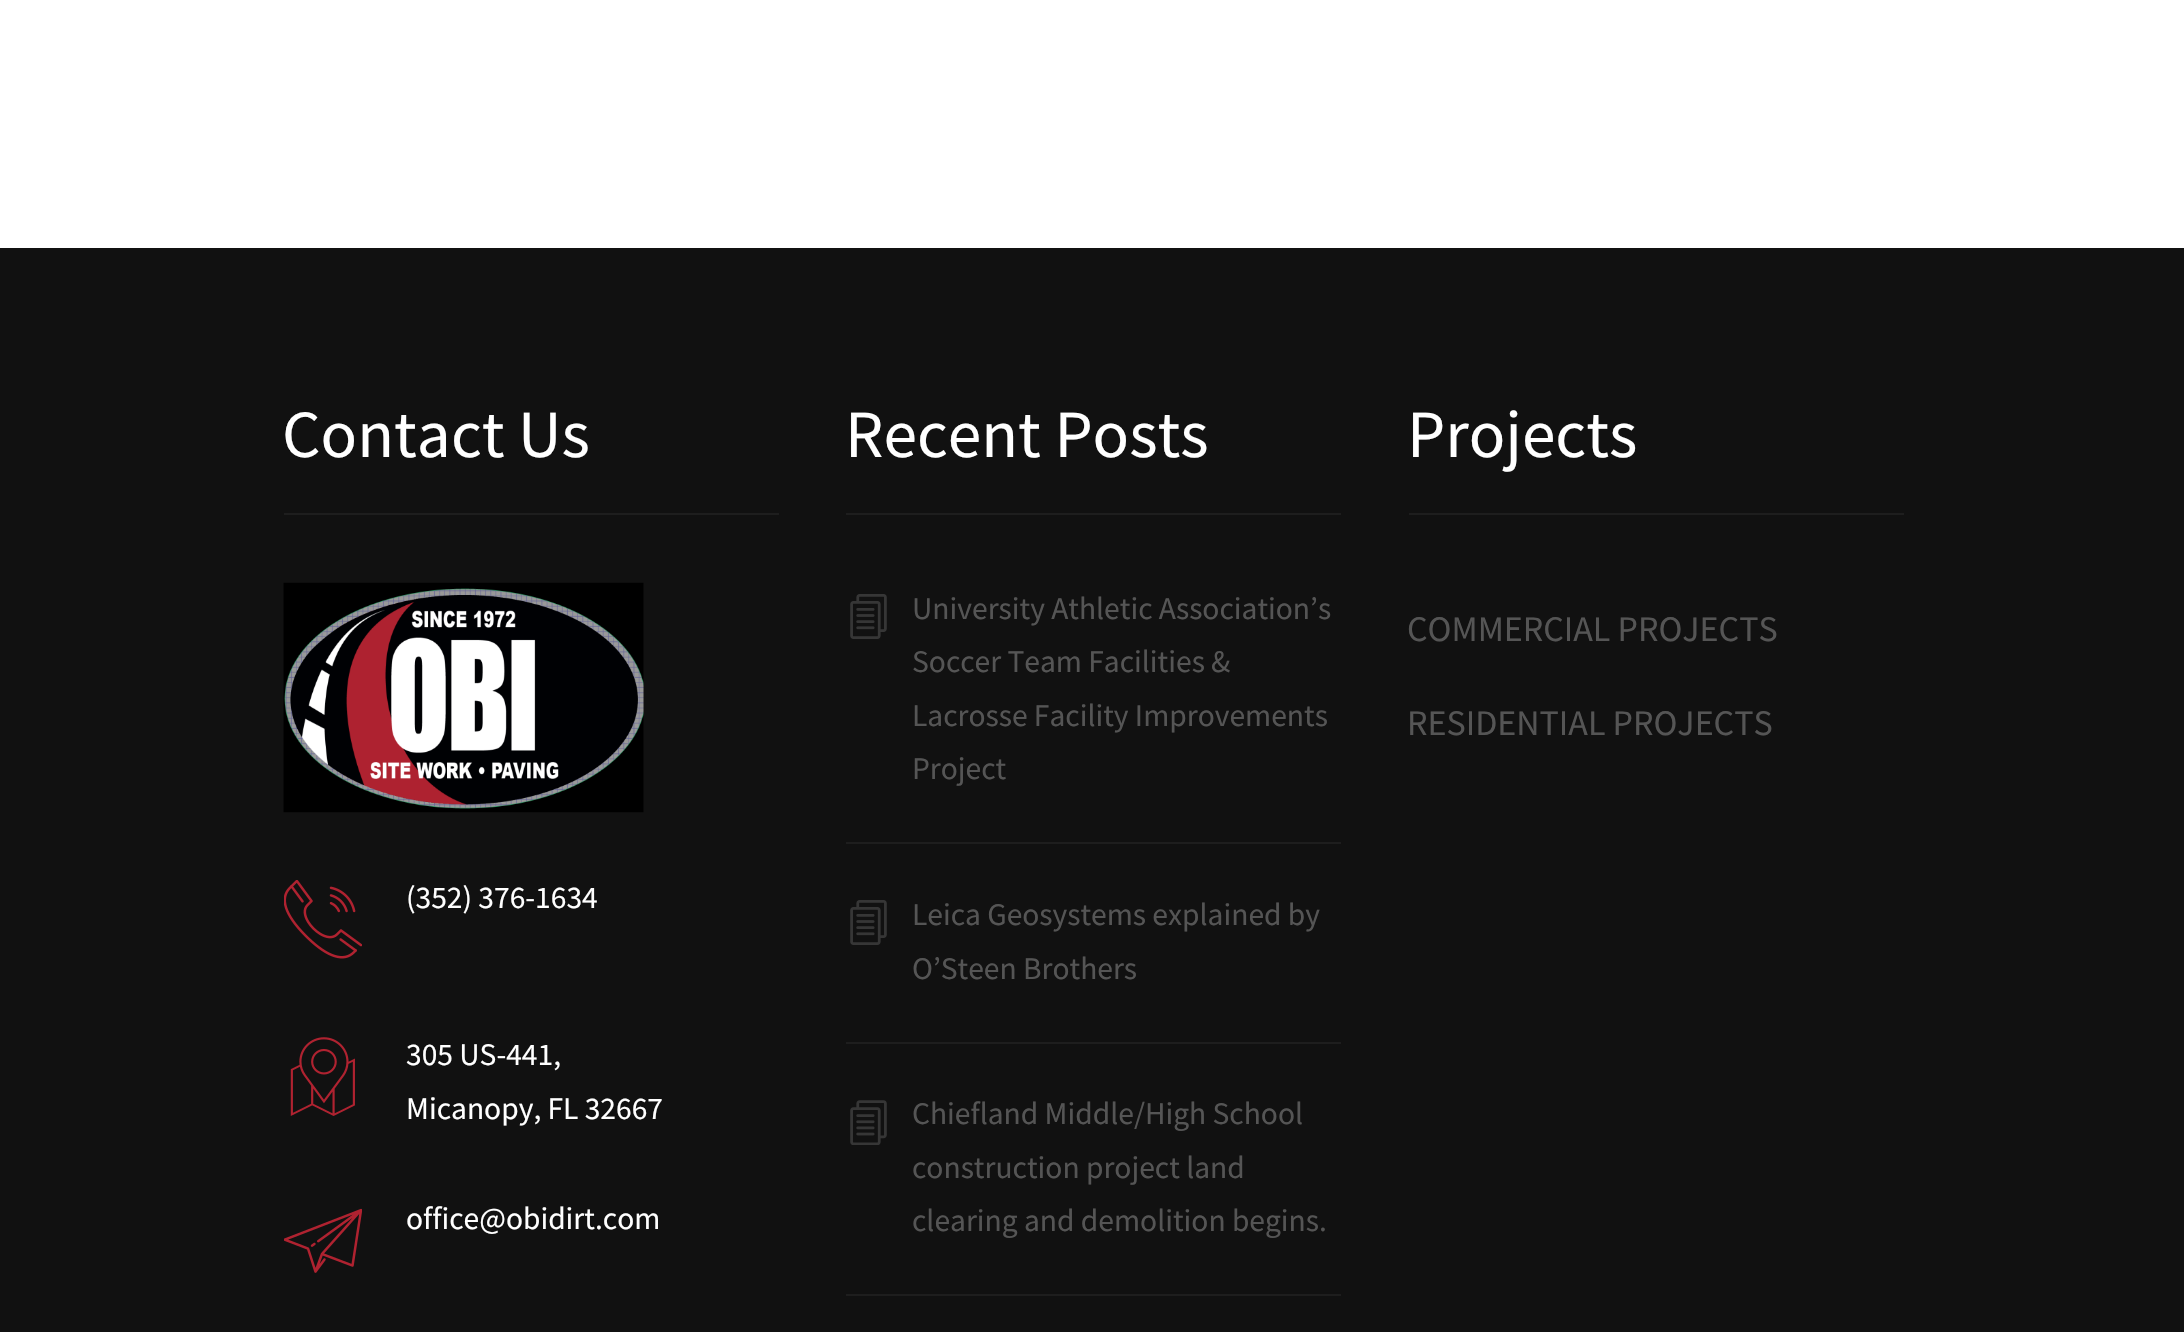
void draw(SkCanvas* canvas) {
	SkPaint paint;
	paint.setAntiAlias(true);
	canvas->clear(0xffffffff);
	paint.setColor(0xff111111);
	canvas->drawRect(SkRect::MakeXYWH(0, 248, 2184, 1084), paint);
	paint.setColor(0xff1e1e1e);
	canvas->drawRect(SkRect::MakeXYWH(284, 513, 495, 2), paint);
	SkFont f1(fontMgr->matchFamilyStyle("Source Sans Pro", SkFontStyle::Normal()), 67.5);
	f1.setSubpixel(true);
	paint.setColor(0xffffffff);
	canvas->drawString("Contact Us", 282, 457, f1, paint);
	canvas->drawImageRect(SkImages::DeferredFromEncodedData(SkData::MakeFromFileName("img1.png")), SkRect::MakeXYWH(283, 582, 361, 231), SkSamplingOptions());
	canvas->drawImageRect(SkImages::DeferredFromEncodedData(SkData::MakeFromFileName("img2.png")), SkRect::MakeXYWH(284, 880, 78, 79), SkSamplingOptions());
	SkFont f2(fontMgr->matchFamilyStyle("Source Sans Pro", SkFontStyle::Normal()), 31.5);
	f2.setSubpixel(true);
	canvas->drawString("(352) 376-1634", 406, 908, f2, paint);
	canvas->drawImageRect(SkImages::DeferredFromEncodedData(SkData::MakeFromFileName("img3.png")), SkRect::MakeXYWH(290, 1037, 65, 79), SkSamplingOptions());
	canvas->drawString("305 US-441,", 406, 1065, f2, paint);
	canvas->drawString("Micanopy, FL 32667", 406, 1119, f2, paint);
	canvas->drawImageRect(SkImages::DeferredFromEncodedData(SkData::MakeFromFileName("img4.png")), SkRect::MakeXYWH(284, 1208, 78, 65), SkSamplingOptions());
	canvas->drawString("office@obidirt.com", 406, 1229, f2, paint);
	paint.setColor(0xff1e1e1e);
	canvas->drawRect(SkRect::MakeXYWH(846, 513, 495, 2), paint);
	paint.setColor(0xffffffff);
	canvas->drawString("Recent Posts", 845, 457, f1, paint);
	canvas->drawImageRect(SkImages::DeferredFromEncodedData(SkData::MakeFromFileName("img5.png")), SkRect::MakeXYWH(850, 594, 37, 45), SkSamplingOptions());
	paint.setColor(0xff1e1e1e);
	canvas->drawRect(SkRect::MakeXYWH(846, 842, 495, 2), paint);
	paint.setColor(0xff555555);
	canvas->drawString("University Athletic Association’s", 912, 619, f2, paint);
	canvas->drawString("Soccer Team Facilities &", 912, 672, f2, paint);
	canvas->drawString("Lacrosse Facility Improvements", 912, 726, f2, paint);
	canvas->drawString("Project", 912, 779, f2, paint);
	canvas->drawImageRect(SkImages::DeferredFromEncodedData(SkData::MakeFromFileName("img5.png")), SkRect::MakeXYWH(850, 900, 37, 45), SkSamplingOptions());
	paint.setColor(0xff1e1e1e);
	canvas->drawRect(SkRect::MakeXYWH(846, 1042, 495, 2), paint);
	paint.setColor(0xff555555);
	canvas->drawString("Leica Geosystems explained by", 912, 925, f2, paint);
	canvas->drawString("O’Steen Brothers", 912, 979, f2, paint);
	canvas->drawImageRect(SkImages::DeferredFromEncodedData(SkData::MakeFromFileName("img6.png")), SkRect::MakeXYWH(850, 1100, 37, 45), SkSamplingOptions());
	paint.setColor(0xff1e1e1e);
	canvas->drawRect(SkRect::MakeXYWH(846, 1294, 495, 2), paint);
	paint.setColor(0xff555555);
	canvas->drawString("Chiefland Middle/High School", 912, 1124, f2, paint);
	canvas->drawString("construction project land", 912, 1178, f2, paint);
	canvas->drawString("clearing and demolition begins.", 912, 1231, f2, paint);
	paint.setColor(0xff1e1e1e);
	canvas->drawRect(SkRect::MakeXYWH(1409, 513, 495, 2), paint);
	paint.setColor(0xffffffff);
	canvas->drawString("Projects", 1407, 457, f1, paint);
	SkFont f3(fontMgr->matchFamilyStyle("Source Sans Pro", SkFontStyle::Normal()), 36);
	f3.setSubpixel(true);
	paint.setColor(0xff555555);
	canvas->drawString("COMMERCIAL PROJECTS", 1407, 641, f3, paint);
	canvas->drawString("RESIDENTIAL PROJECTS", 1407, 735, f3, paint);
}
